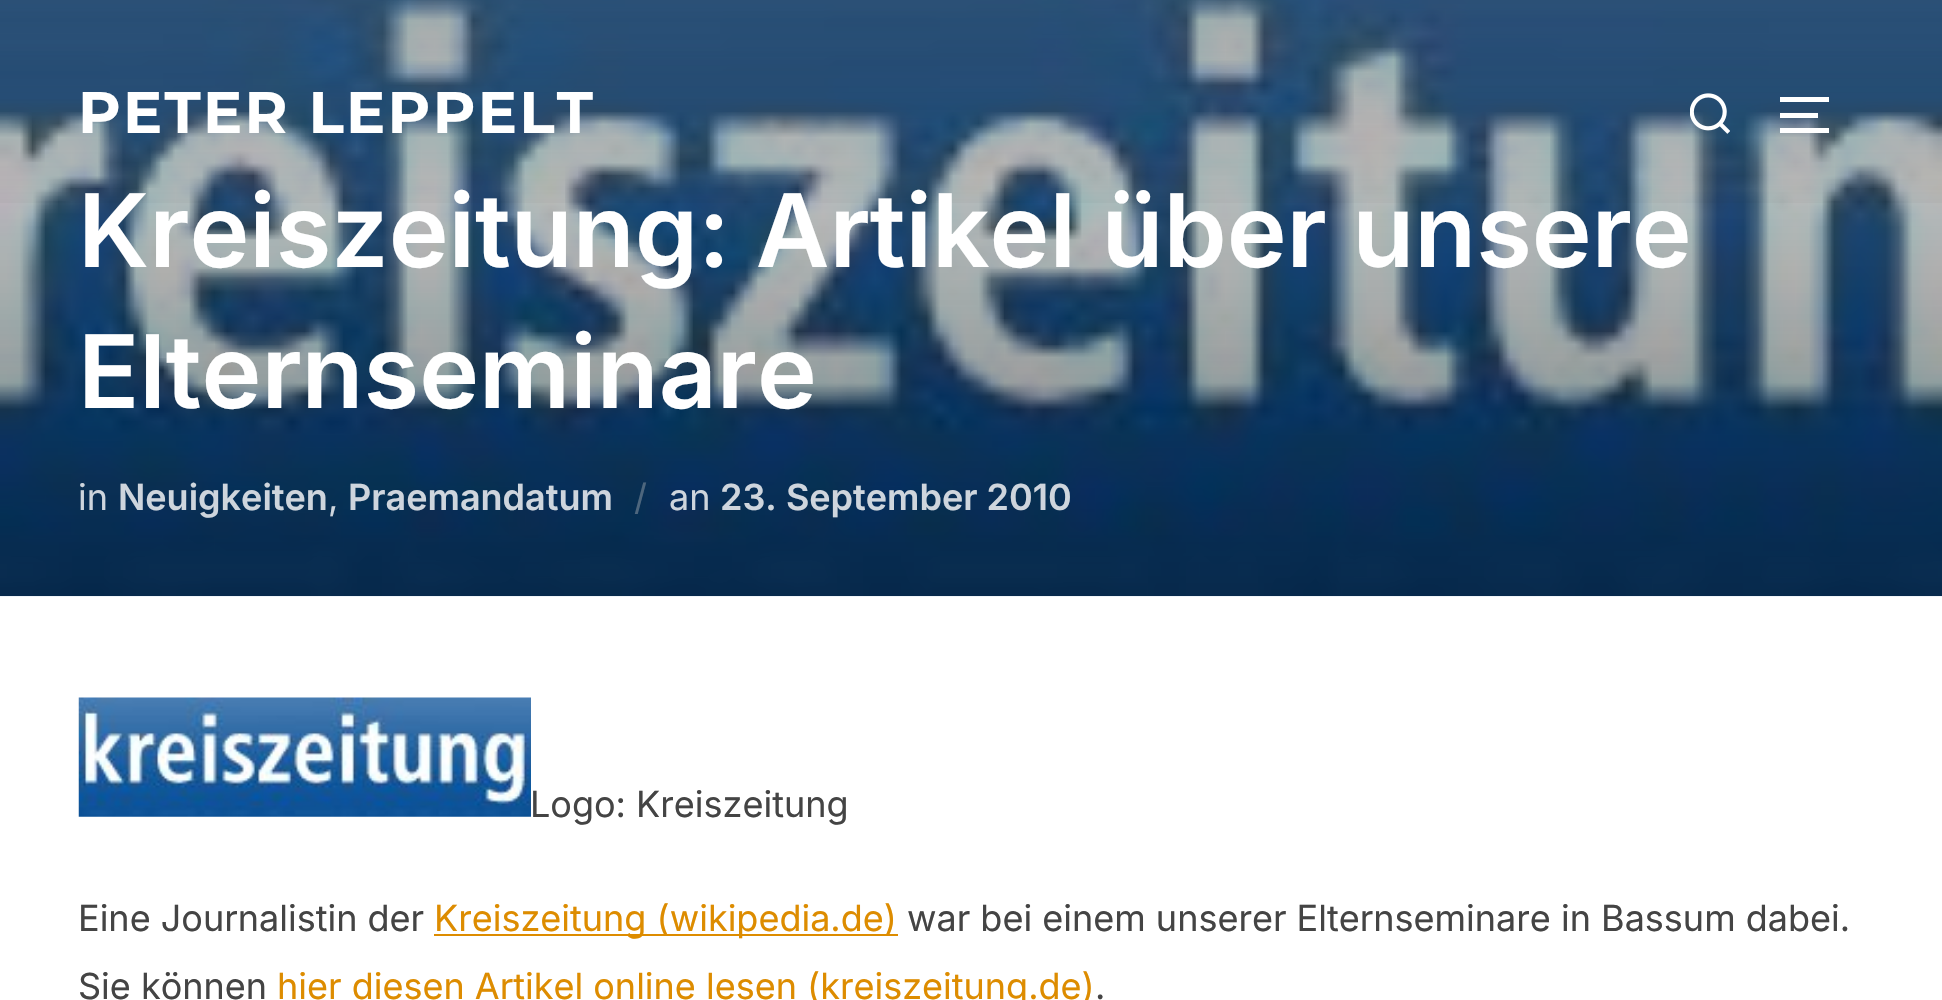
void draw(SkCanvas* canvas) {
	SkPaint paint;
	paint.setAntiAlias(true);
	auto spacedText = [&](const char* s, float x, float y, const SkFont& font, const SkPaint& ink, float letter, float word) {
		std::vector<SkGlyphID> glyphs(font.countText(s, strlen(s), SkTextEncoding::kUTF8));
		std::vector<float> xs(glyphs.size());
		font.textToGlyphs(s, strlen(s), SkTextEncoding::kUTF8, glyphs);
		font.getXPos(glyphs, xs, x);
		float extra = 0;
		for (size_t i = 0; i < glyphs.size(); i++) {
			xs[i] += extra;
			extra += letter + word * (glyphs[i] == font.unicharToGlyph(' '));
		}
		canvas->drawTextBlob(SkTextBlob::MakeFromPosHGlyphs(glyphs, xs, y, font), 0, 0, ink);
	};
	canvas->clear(0xffffffff);
	canvas->drawImageRect(SkImages::DeferredFromEncodedData(SkData::MakeFromFileName("img2.png")), SkRect::MakeXYWH(0, 0, 1942, 597), SkSamplingOptions());
	{
		const SkColor colors[] = {0x33000000, 0x00000000};
		const float stops[] = {0.01, 1};
		const SkPoint ends[] = {{972, 0}, {972, 227}};
		paint.setShader(SkGradientShader::MakeLinear(ends, colors, stops, 2, SkTileMode::kClamp));
		paint.setAlpha(255);
	}
	canvas->drawRect(SkRect::MakeXYWH(0, 0, 1942, 203), paint);
	SkFont f1(fontMgr->matchFamilyStyle("Montserrat", SkFontStyle::Bold()), 58.5);
	f1.setSubpixel(true);
	paint.setShader(nullptr);
	paint.setColor(0xffffffff);
	spacedText("PETER LEPPELT", 78, 133, f1, paint, 2.25, 0);
	canvas->drawImageRect(SkImages::DeferredFromEncodedData(SkData::MakeFromFileName("img1.png")), SkRect::MakeXYWH(1690, 93, 40, 41), SkSamplingOptions());
	canvas->drawRect(SkRect::MakeXYWH(1780, 97, 49, 5), paint);
	canvas->drawRect(SkRect::MakeXYWH(1780, 113, 38, 5), paint);
	canvas->drawRect(SkRect::MakeXYWH(1780, 128, 49, 5), paint);
	SkFont f2(fontMgr->matchFamilyStyle("Inter", SkFontStyle(600, SkFontStyle::kNormal_Width, SkFontStyle::kUpright_Slant)), 101.25);
	f2.setSubpixel(true);
	canvas->drawString("Kreiszeitung: Artikel über unsere", 78, 267, f2, paint);
	canvas->drawString("Elternseminare", 78, 408, f2, paint);
	SkFont f3(fontMgr->matchFamilyStyle("Inter", SkFontStyle::Normal()), 36);
	f3.setSubpixel(true);
	paint.setColor(0xffced5dd);
	canvas->drawString("in", 78, 510, f3, paint);
	SkFont f4(fontMgr->matchFamilyStyle("Inter", SkFontStyle(600, SkFontStyle::kNormal_Width, SkFontStyle::kUpright_Slant)), 36);
	f4.setSubpixel(true);
	canvas->drawString("Neuigkeiten", 118, 510, f4, paint);
	canvas->drawString(",", 328, 510, f3, paint);
	canvas->drawString("Praemandatum", 348, 510, f4, paint);
	paint.setColor(0xff4d667d);
	canvas->drawString("/", 634, 510, f3, paint);
	paint.setColor(0xffced5dd);
	canvas->drawString("an", 669, 510, f3, paint);
	canvas->drawString("23. September 2010", 720, 510, f4, paint);
	canvas->drawImageRect(SkImages::DeferredFromEncodedData(SkData::MakeFromFileName("img3.png")), SkRect::MakeXYWH(78, 697, 453, 120), SkSamplingOptions());
	paint.setColor(0xff444444);
	canvas->drawString("Logo: Kreiszeitung", 530, 817, f3, paint);
	canvas->drawString("Eine Journalistin der", 78, 931, f3, paint);
	paint.setColor(0xffdd8c00);
	canvas->drawRect(SkRect::MakeXYWH(434, 934, 464, 2), paint);
	canvas->drawString("Kreiszeitung (wikipedia.de)", 434, 931, f3, paint);
	paint.setColor(0xff444444);
	canvas->drawString("war bei einem unserer Elternseminare in Bassum dabei.", 907, 931, f3, paint);
	canvas->drawString("Sie können", 78, 999, f3, paint);
	paint.setColor(0xffdd8c00);
	canvas->drawString("hier diesen Artikel online lesen (kreiszeitung.de)", 277, 999, f3, paint);
	paint.setColor(0xff444444);
	canvas->drawString(".", 1095, 999, f3, paint);
}
